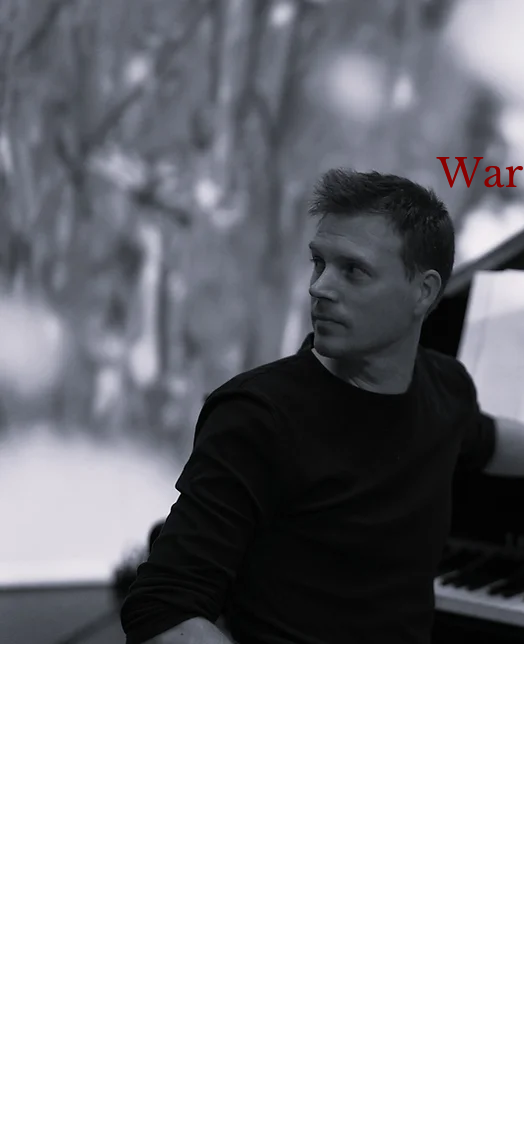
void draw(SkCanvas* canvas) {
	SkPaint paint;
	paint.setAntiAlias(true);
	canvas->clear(0xffffffff);
	canvas->drawImageRect(SkImages::DeferredFromEncodedData(SkData::MakeFromFileName("img1.png")), SkRect::MakeXYWH(0, 0, 524, 644), SkSamplingOptions());
	SkFont f1(fontMgr->matchFamilyStyle("Libre Baskerville", SkFontStyle::Normal()), 39);
	f1.setSubpixel(true);
	paint.setColor(0xff8b0000);
	canvas->drawString("War", 437, 187, f1, paint);
}
